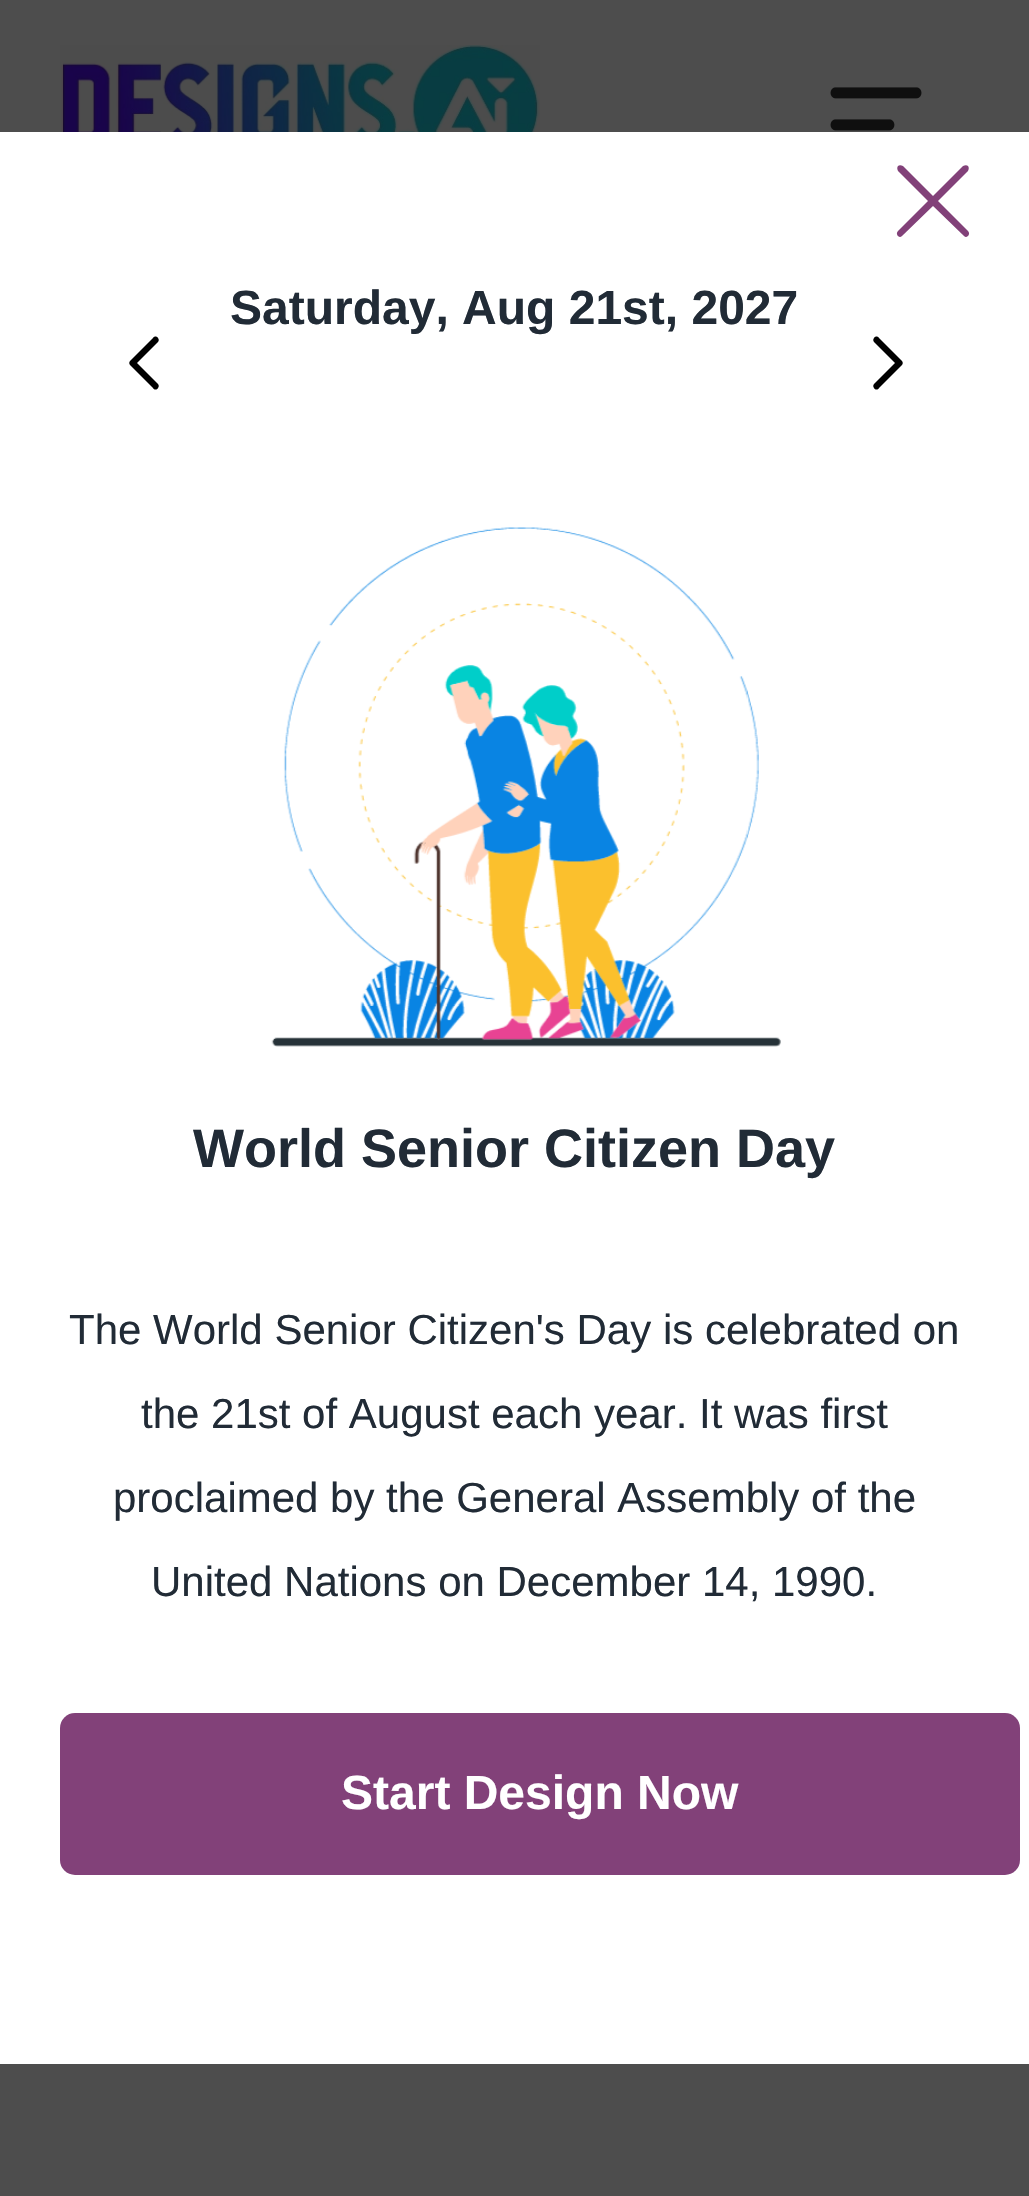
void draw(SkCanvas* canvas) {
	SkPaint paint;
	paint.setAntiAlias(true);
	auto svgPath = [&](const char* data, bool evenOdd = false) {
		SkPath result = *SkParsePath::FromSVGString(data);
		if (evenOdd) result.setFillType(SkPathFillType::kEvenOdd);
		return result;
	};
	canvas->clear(0xff4d4d4d);
	canvas->drawImageRect(SkImages::DeferredFromEncodedData(SkData::MakeFromFileName("img1.png")), SkRect::MakeXYWH(60, 45, 480, 87), SkSamplingOptions());
	canvas->drawImageRect(SkImages::DeferredFromEncodedData(SkData::MakeFromFileName("img2.png")), SkRect::MakeXYWH(830, 87, 92, 44), SkSamplingOptions());
	paint.setColor(0xffffffff);
	canvas->drawRect(SkRect::MakeXYWH(0, 132, 1029, 1932), paint);
	paint.setColor(0xff824179);
	canvas->drawPath(svgPath("M938 201L968 171C969 169 969 167 968 166C967 165 965 165 963 166L933 196L903 166C901 165 899 165 898 166C897 167 897 169 898 171L928 201L898 231C895 234 899 239 902 236L933 206L964 236C967 239 971 234 968 231Z"), paint);
	SkFont f1(fontMgr->matchFamilyStyle("Liberation Sans", SkFontStyle::Bold()), 48);
	f1.setSubpixel(true);
	paint.setColor(0xff212b36);
	canvas->drawString("Saturday, Aug 21st, 2027", 230, 324, f1, paint);
	paint.setColor(0xff000000);
	canvas->drawPath(svgPath("M130 365L153 388C154 390 157 390 158 388C159 387 159 385 158 384L137 363L158 342C159 341 159 339 158 338C157 336 154 336 153 338L130 361C129 362 129 364 130 365Z"), paint);
	canvas->drawPath(svgPath("M902 365L879 388C878 390 875 390 874 388C873 387 873 385 874 384L895 363L874 342C873 341 873 339 874 338C875 336 878 336 879 338L902 361C903 362 903 364 902 365Z"), paint);
	canvas->drawImageRect(SkImages::DeferredFromEncodedData(SkData::MakeFromFileName("img3.png")), SkRect::MakeXYWH(271, 527, 510, 520), SkSamplingOptions());
	SkFont f2(fontMgr->matchFamilyStyle("Liberation Sans", SkFontStyle::Bold()), 54);
	f2.setSubpixel(true);
	paint.setColor(0xff212b36);
	canvas->drawString("World Senior Citizen Day", 193, 1167, f2, paint);
	SkFont f3(fontMgr->matchFamilyStyle("Liberation Sans", SkFontStyle::Normal()), 42);
	f3.setSubpixel(true);
	canvas->drawString("The World Senior Citizen's Day is celebrated on", 69, 1344, f3, paint);
	canvas->drawString("the 21st of August each year. It was first", 141, 1428, f3, paint);
	canvas->drawString("proclaimed by the General Assembly of the", 113, 1512, f3, paint);
	canvas->drawString("United Nations on December 14, 1990.", 151, 1596, f3, paint);
	paint.setColor(0xff824179);
	canvas->drawRoundRect(SkRect::MakeXYWH(60, 1713, 960, 162), 15, 15, paint);
	paint.setColor(0xffffffff);
	canvas->drawString("Start Design Now", 341, 1809, f1, paint);
}
